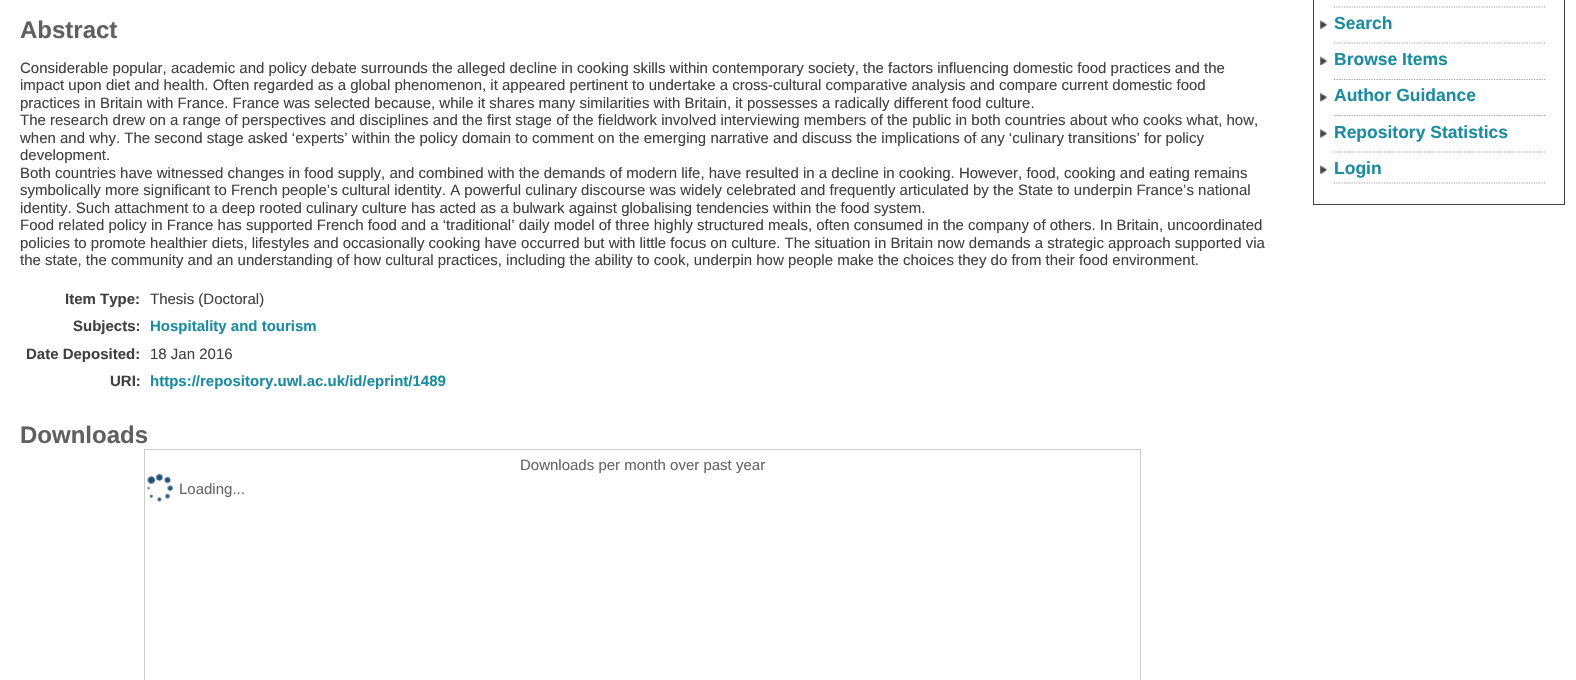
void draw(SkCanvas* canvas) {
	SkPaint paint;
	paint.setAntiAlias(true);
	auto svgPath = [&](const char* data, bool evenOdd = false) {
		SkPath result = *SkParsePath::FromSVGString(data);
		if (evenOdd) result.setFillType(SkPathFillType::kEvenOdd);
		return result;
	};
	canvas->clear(0xffffffff);
	SkFont f1(fontMgr->matchFamilyStyle("Liberation Sans", SkFontStyle::Bold()), 24);
	f1.setSubpixel(true);
	paint.setColor(0xff606060);
	canvas->drawString("Abstract", 20, 38, f1, paint);
	SkFont f2(fontMgr->matchFamilyStyle("Liberation Sans", SkFontStyle::Normal()), 15);
	f2.setSubpixel(true);
	paint.setColor(0xff404041);
	canvas->drawString("Considerable popular, academic and policy debate surrounds the alleged decline in cooking skills within contemporary society, the factors influencing domestic food practices and the", 20, 73, f2, paint);
	canvas->drawString("impact upon diet and health. Often regarded as a global phenomenon, it appeared pertinent to undertake a cross-cultural comparative analysis and compare current domestic food", 20, 90, f2, paint);
	canvas->drawString("practices in Britain with France. France was selected because, while it shares many similarities with Britain, it possesses a radically different food culture.", 20, 108, f2, paint);
	canvas->drawString("The research drew on a range of perspectives and disciplines and the first stage of the fieldwork involved interviewing members of the public in both countries about who cooks what, how,", 20, 125, f2, paint);
	canvas->drawString("when and why. The second stage asked ‘experts’ within the policy domain to comment on the emerging narrative and discuss the implications of any ‘culinary transitions’ for policy", 20, 143, f2, paint);
	canvas->drawString("development.", 20, 160, f2, paint);
	canvas->drawString("Both countries have witnessed changes in food supply, and combined with the demands of modern life, have resulted in a decline in cooking. However, food, cooking and eating remains", 20, 178, f2, paint);
	canvas->drawString("symbolically more significant to French people’s cultural identity. A powerful culinary discourse was widely celebrated and frequently articulated by the State to underpin France’s national", 20, 195, f2, paint);
	canvas->drawString("identity. Such attachment to a deep rooted culinary culture has acted as a bulwark against globalising tendencies within the food system.", 20, 213, f2, paint);
	canvas->drawString("Food related policy in France has supported French food and a ‘traditional’ daily model of three highly structured meals, often consumed in the company of others. In Britain, uncoordinated", 20, 230, f2, paint);
	canvas->drawString("policies to promote healthier diets, lifestyles and occasionally cooking have occurred but with little focus on culture. The situation in Britain now demands a strategic approach supported via", 20, 248, f2, paint);
	canvas->drawString("the state, the community and an understanding of how cultural practices, including the ability to cook, underpin how people make the choices they do from their food environment.", 20, 265, f2, paint);
	SkFont f3(fontMgr->matchFamilyStyle("Liberation Sans", SkFontStyle::Bold()), 15);
	f3.setSubpixel(true);
	canvas->drawString("Item Type:", 65, 304, f3, paint);
	canvas->drawString("Thesis (Doctoral)", 150, 304, f2, paint);
	canvas->drawString("Subjects:", 73, 331, f3, paint);
	paint.setColor(0xff1e8ca0);
	canvas->drawString("Hospitality and tourism", 150, 331, f3, paint);
	paint.setColor(0xff404041);
	canvas->drawString("Date Deposited:", 26, 359, f3, paint);
	canvas->drawString("18 Jan 2016", 150, 359, f2, paint);
	canvas->drawString("URI:", 110, 386, f3, paint);
	paint.setColor(0xff1e8ca0);
	canvas->drawString("https://repository.uwl.ac.uk/id/eprint/1489", 150, 386, f3, paint);
	paint.setColor(0xff606060);
	canvas->drawString("Downloads", 20, 443, f1, paint);
	paint.setStroke(true);
	paint.setStrokeWidth(1);
	paint.setColor(0xffcccccc);
	canvas->drawRect(SkRect::MakeXYWH(144.5, 449.5, 996, 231), paint);
	paint.setStroke(false);
	paint.setColor(0xff666666);
	canvas->drawString("Downloads per month over past year", 520, 470, f2, paint);
	canvas->drawImageRect(SkImages::DeferredFromEncodedData(SkData::MakeFromFileName("img1.png")), SkRect::MakeXYWH(146, 473, 28, 29), SkSamplingOptions());
	canvas->drawString("Loading...", 179, 494, f2, paint);
	paint.setStroke(true);
	paint.setColor(0xff404040);
	canvas->drawRect(SkRect::MakeXYWH(1313.5, -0.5, 251, 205), paint);
	canvas->drawImageRect(SkImages::DeferredFromEncodedData(SkData::MakeFromFileName("img2.png")), SkRect::MakeXYWH(1320, 20, 8, 9), SkSamplingOptions());
	paint.setStrokeWidth(1.2);
	paint.setColor(0xff9f9fa0);
	paint.setPathEffect(SkDashPathEffect::Make({{1.25f, 1.25f}}, 0));
	canvas->drawPath(svgPath("M1334 7H1546"), paint);
	paint.setPathEffect(nullptr);
	SkFont f4(fontMgr->matchFamilyStyle("Liberation Sans", SkFontStyle::Bold()), 17.5);
	f4.setSubpixel(true);
	paint.setStroke(false);
	paint.setColor(0xff1e8ca0);
	canvas->drawString("Search", 1334, 29, f4, paint);
	canvas->drawImageRect(SkImages::DeferredFromEncodedData(SkData::MakeFromFileName("img3.png")), SkRect::MakeXYWH(1320, 56, 8, 9), SkSamplingOptions());
	paint.setStroke(true);
	paint.setColor(0xff9f9fa0);
	paint.setPathEffect(SkDashPathEffect::Make({{1.25f, 1.25f}}, 0));
	canvas->drawPath(svgPath("M1334 43H1546"), paint);
	paint.setPathEffect(nullptr);
	paint.setStroke(false);
	paint.setColor(0xff1e8ca0);
	canvas->drawString("Browse Items", 1334, 65, f4, paint);
	canvas->drawImageRect(SkImages::DeferredFromEncodedData(SkData::MakeFromFileName("img4.png")), SkRect::MakeXYWH(1320, 92, 8, 10), SkSamplingOptions());
	paint.setStroke(true);
	paint.setColor(0xff9f9fa0);
	paint.setPathEffect(SkDashPathEffect::Make({{1.25f, 1.25f}}, 0));
	canvas->drawPath(svgPath("M1334 79.5H1546"), paint);
	paint.setPathEffect(nullptr);
	paint.setStroke(false);
	paint.setColor(0xff1e8ca0);
	canvas->drawString("Author Guidance", 1334, 101, f4, paint);
	canvas->drawImageRect(SkImages::DeferredFromEncodedData(SkData::MakeFromFileName("img5.png")), SkRect::MakeXYWH(1320, 128, 8, 10), SkSamplingOptions());
	paint.setStroke(true);
	paint.setColor(0xff9f9fa0);
	paint.setPathEffect(SkDashPathEffect::Make({{1.25f, 1.25f}}, 0));
	canvas->drawPath(svgPath("M1334 115.5H1546"), paint);
	paint.setPathEffect(nullptr);
	paint.setStroke(false);
	paint.setColor(0xff1e8ca0);
	canvas->drawString("Repository Statistics", 1334, 138, f4, paint);
	canvas->drawImageRect(SkImages::DeferredFromEncodedData(SkData::MakeFromFileName("img2.png")), SkRect::MakeXYWH(1320, 165, 8, 9), SkSamplingOptions());
	paint.setStroke(true);
	paint.setColor(0xff9f9fa0);
	paint.setPathEffect(SkDashPathEffect::Make({{1.25f, 1.25f}}, 0));
	canvas->drawPath(svgPath("M1334 152H1546"), paint);
	paint.setPathEffect(nullptr);
	paint.setPathEffect(SkDashPathEffect::Make({{1.25f, 1.25f}}, 0));
	canvas->drawPath(svgPath("M1334 183H1546"), paint);
	paint.setPathEffect(nullptr);
	paint.setStroke(false);
	paint.setColor(0xff1e8ca0);
	canvas->drawString("Login", 1334, 174, f4, paint);
}
